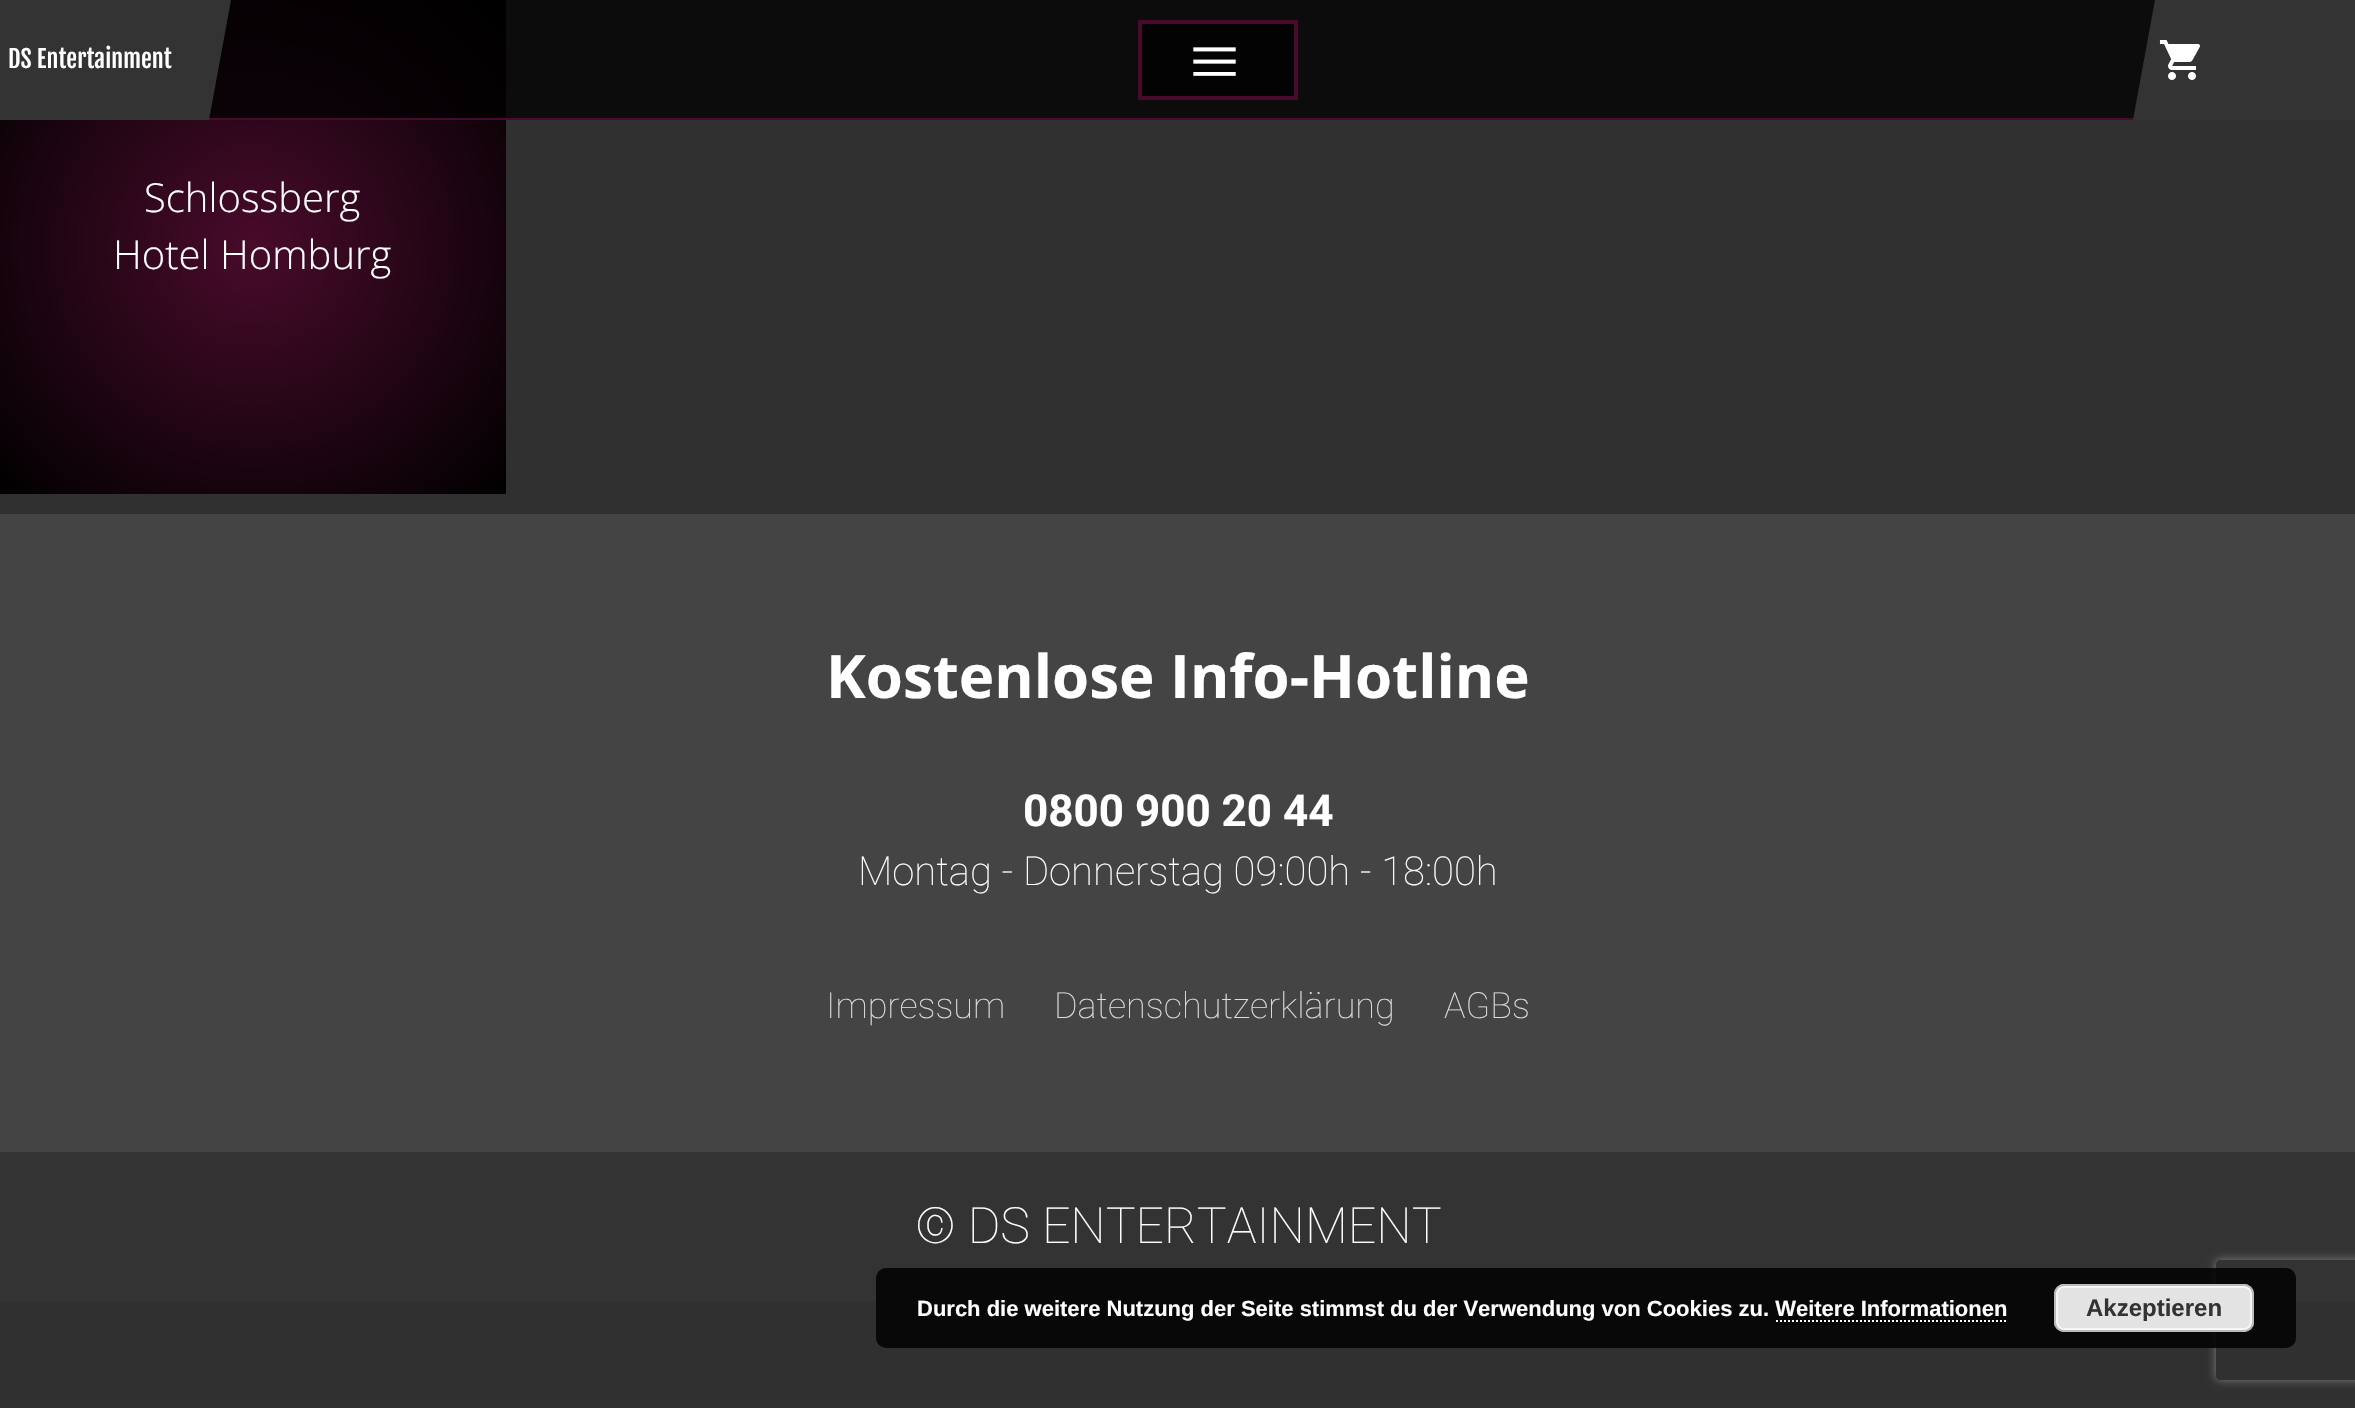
void draw(SkCanvas* canvas) {
	SkPaint paint;
	paint.setAntiAlias(true);
	auto svgPath = [&](const char* data, bool evenOdd = false) {
		SkPath result = *SkParsePath::FromSVGString(data);
		if (evenOdd) result.setFillType(SkPathFillType::kEvenOdd);
		return result;
	};
	canvas->clear(0xff303030);
	paint.setColor(0xff0c0c0c);
	canvas->drawRect(SkRect::MakeXYWH(506, 0, 1649, 118), paint);
	paint.setColor(0xff490b2b);
	canvas->drawRect(SkRect::MakeXYWH(209, 118, 1925, 2), paint);
	paint.setColor(0xff333333);
	canvas->drawRect(SkRect::MakeXYWH(0, 0, 191, 120), paint);
	SkFont f1(fontMgr->matchFamilyStyle("Fjalla One", SkFontStyle::Normal()), 24);
	f1.setSubpixel(true);
	paint.setColor(0xffffffff);
	canvas->drawString("DS Entertainment", 8, 68, f1, paint);
	{
		const SkColor colors[] = {0xff12030b, 0xff000000};
		const float stops[] = {0, 1};
		paint.setShader(SkGradientShader::MakeRadial({253, 247}, 354, colors, stops, 2, SkTileMode::kClamp));
		paint.setAlpha(255);
	}
	canvas->drawRect(SkRect::MakeXYWH(209, 0, 297, 118), paint);
	paint.setShader(nullptr);
	paint.setColor(0xff333333);
	canvas->drawPath(svgPath("M191 0H231L209 120H169Z"), paint);
	paint.setColor(0xff030303);
	canvas->drawRect(SkRect::MakeXYWH(1140, 22, 156, 76), paint);
	paint.setStroke(true);
	paint.setStrokeWidth(4);
	paint.setColor(0xff490b2b);
	canvas->drawRect(SkRect::MakeXYWH(1140, 22, 156, 76), paint);
	SkFont f2(fontMgr->matchFamilyStyle("Roboto", SkFontStyle::Normal()), 50);
	f2.setSubpixel(true);
	paint.setStroke(false);
	paint.setColor(0xffffffff);
	canvas->save();
	canvas->rotate(-90, 1229, 80);
	canvas->drawString("|||", 1229, 80, f2, paint);
	canvas->restore();
	paint.setColor(0xff333333);
	canvas->drawRect(SkRect::MakeXYWH(2157, 0, 198, 120), paint);
	canvas->drawPath(svgPath("M2155 0H2179L2157 120H2133Z"), paint);
	canvas->drawImageRect(SkImages::DeferredFromEncodedData(SkData::MakeFromFileName("img1.png")), SkRect::MakeXYWH(2159, 40, 41, 40), SkSamplingOptions());
	{
		const SkColor colors[] = {0xff490b2b, 0xff000000};
		const float stops[] = {0, 1};
		paint.setShader(SkGradientShader::MakeRadial({253, 247}, 354, colors, stops, 2, SkTileMode::kClamp));
		paint.setAlpha(255);
	}
	canvas->drawRect(SkRect::MakeXYWH(0, 120, 506, 374), paint);
	SkFont f3(fontMgr->matchFamilyStyle("Open Sans", SkFontStyle(300, SkFontStyle::kNormal_Width, SkFontStyle::kUpright_Slant)), 40);
	f3.setSubpixel(true);
	paint.setShader(nullptr);
	paint.setColor(0xffffffff);
	canvas->drawString("Schlossberg", 144, 212, f3, paint);
	canvas->drawString("Hotel Homburg", 113, 269, f3, paint);
	paint.setColor(0xff444444);
	canvas->drawRect(SkRect::MakeXYWH(0, 514, 2355, 638), paint);
	SkFont f4(fontMgr->matchFamilyStyle("Open Sans", SkFontStyle::Bold()), 60);
	f4.setSubpixel(true);
	paint.setColor(0xffffffff);
	canvas->drawString("Kostenlose Info-Hotline", 826, 698, f4, paint);
	SkFont f5(fontMgr->matchFamilyStyle("Roboto", SkFontStyle::Bold()), 44);
	f5.setSubpixel(true);
	canvas->drawString("0800 900 20 44", 1023, 826, f5, paint);
	SkFont f6(fontMgr->matchFamilyStyle("Roboto", SkFontStyle(100, SkFontStyle::kNormal_Width, SkFontStyle::kUpright_Slant)), 40);
	f6.setSubpixel(true);
	canvas->drawString("Montag - Donnerstag 09:00h - 18:00h", 858, 885, f6, paint);
	SkFont f7(fontMgr->matchFamilyStyle("Roboto", SkFontStyle(100, SkFontStyle::kNormal_Width, SkFontStyle::kUpright_Slant)), 36);
	f7.setSubpixel(true);
	paint.setColor(0xffdddddd);
	canvas->drawString("Impressum", 826, 1018, f7, paint);
	canvas->drawString("Datenschutzerklärung", 1054, 1018, f7, paint);
	canvas->drawString("AGBs", 1444, 1018, f7, paint);
	paint.setColor(0xff333333);
	canvas->drawRect(SkRect::MakeXYWH(0, 1152, 2355, 150), paint);
	SkFont f8(fontMgr->matchFamilyStyle("Roboto", SkFontStyle(100, SkFontStyle::kNormal_Width, SkFontStyle::kUpright_Slant)), 50);
	f8.setSubpixel(true);
	paint.setColor(0xffffffff);
	canvas->drawString("© DS ENTERTAINMENT", 915, 1243, f8, paint);
	canvas->save();
	canvas->clipPath(svgPath("M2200 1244H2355V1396H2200ZM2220 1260H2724C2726 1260 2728 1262 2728 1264V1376C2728 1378 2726 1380 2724 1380H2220C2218 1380 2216 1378 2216 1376V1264C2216 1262 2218 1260 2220 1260Z", true), true);
	paint.setColor(0xff808080);
	paint.setMaskFilter(SkMaskFilter::MakeBlur(kNormal_SkBlurStyle, 5));
	canvas->drawRoundRect(SkRect::MakeXYWH(2216, 1260, 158, 120), 4, 4, paint);
	paint.setMaskFilter(nullptr);
	canvas->restore();
	paint.setColor(0xd9000000);
	canvas->drawRoundRect(SkRect::MakeXYWH(876, 1268, 1420, 80), 10, 10, paint);
	SkFont f9(fontMgr->matchFamilyStyle("Liberation Sans", SkFontStyle::Bold()), 22);
	f9.setSubpixel(true);
	paint.setColor(0xffffffff);
	canvas->drawString("Durch die weitere Nutzung der Seite stimmst du der Verwendung von Cookies zu. Weitere Informationen", 917, 1316, f9, paint);
	paint.setColor(0xffe3e3e3);
	canvas->drawRoundRect(SkRect::MakeXYWH(2054, 1284, 200, 48), 10, 10, paint);
	paint.setStroke(true);
	paint.setStrokeWidth(2);
	paint.setColor(0xfff6f6f6);
	canvas->drawRoundRect(SkRect::MakeXYWH(2057, 1287, 194, 42), 7, 7, paint);
	paint.setColor(0xffbbbbbb);
	canvas->drawRoundRect(SkRect::MakeXYWH(2055, 1285, 198, 46), 9, 9, paint);
	SkFont f10(fontMgr->matchFamilyStyle("Liberation Sans", SkFontStyle::Bold()), 24);
	f10.setSubpixel(true);
	paint.setStroke(false);
	paint.setColor(0xff333333);
	canvas->drawString("Akzeptieren", 2086, 1316, f10, paint);
	paint.setStroke(true);
	paint.setColor(0xffffffff);
	paint.setPathEffect(SkDashPathEffect::Make({{2, 2}}, 0));
	canvas->drawPath(svgPath("M1776 1321H2008"), paint);
	paint.setPathEffect(nullptr);
}
